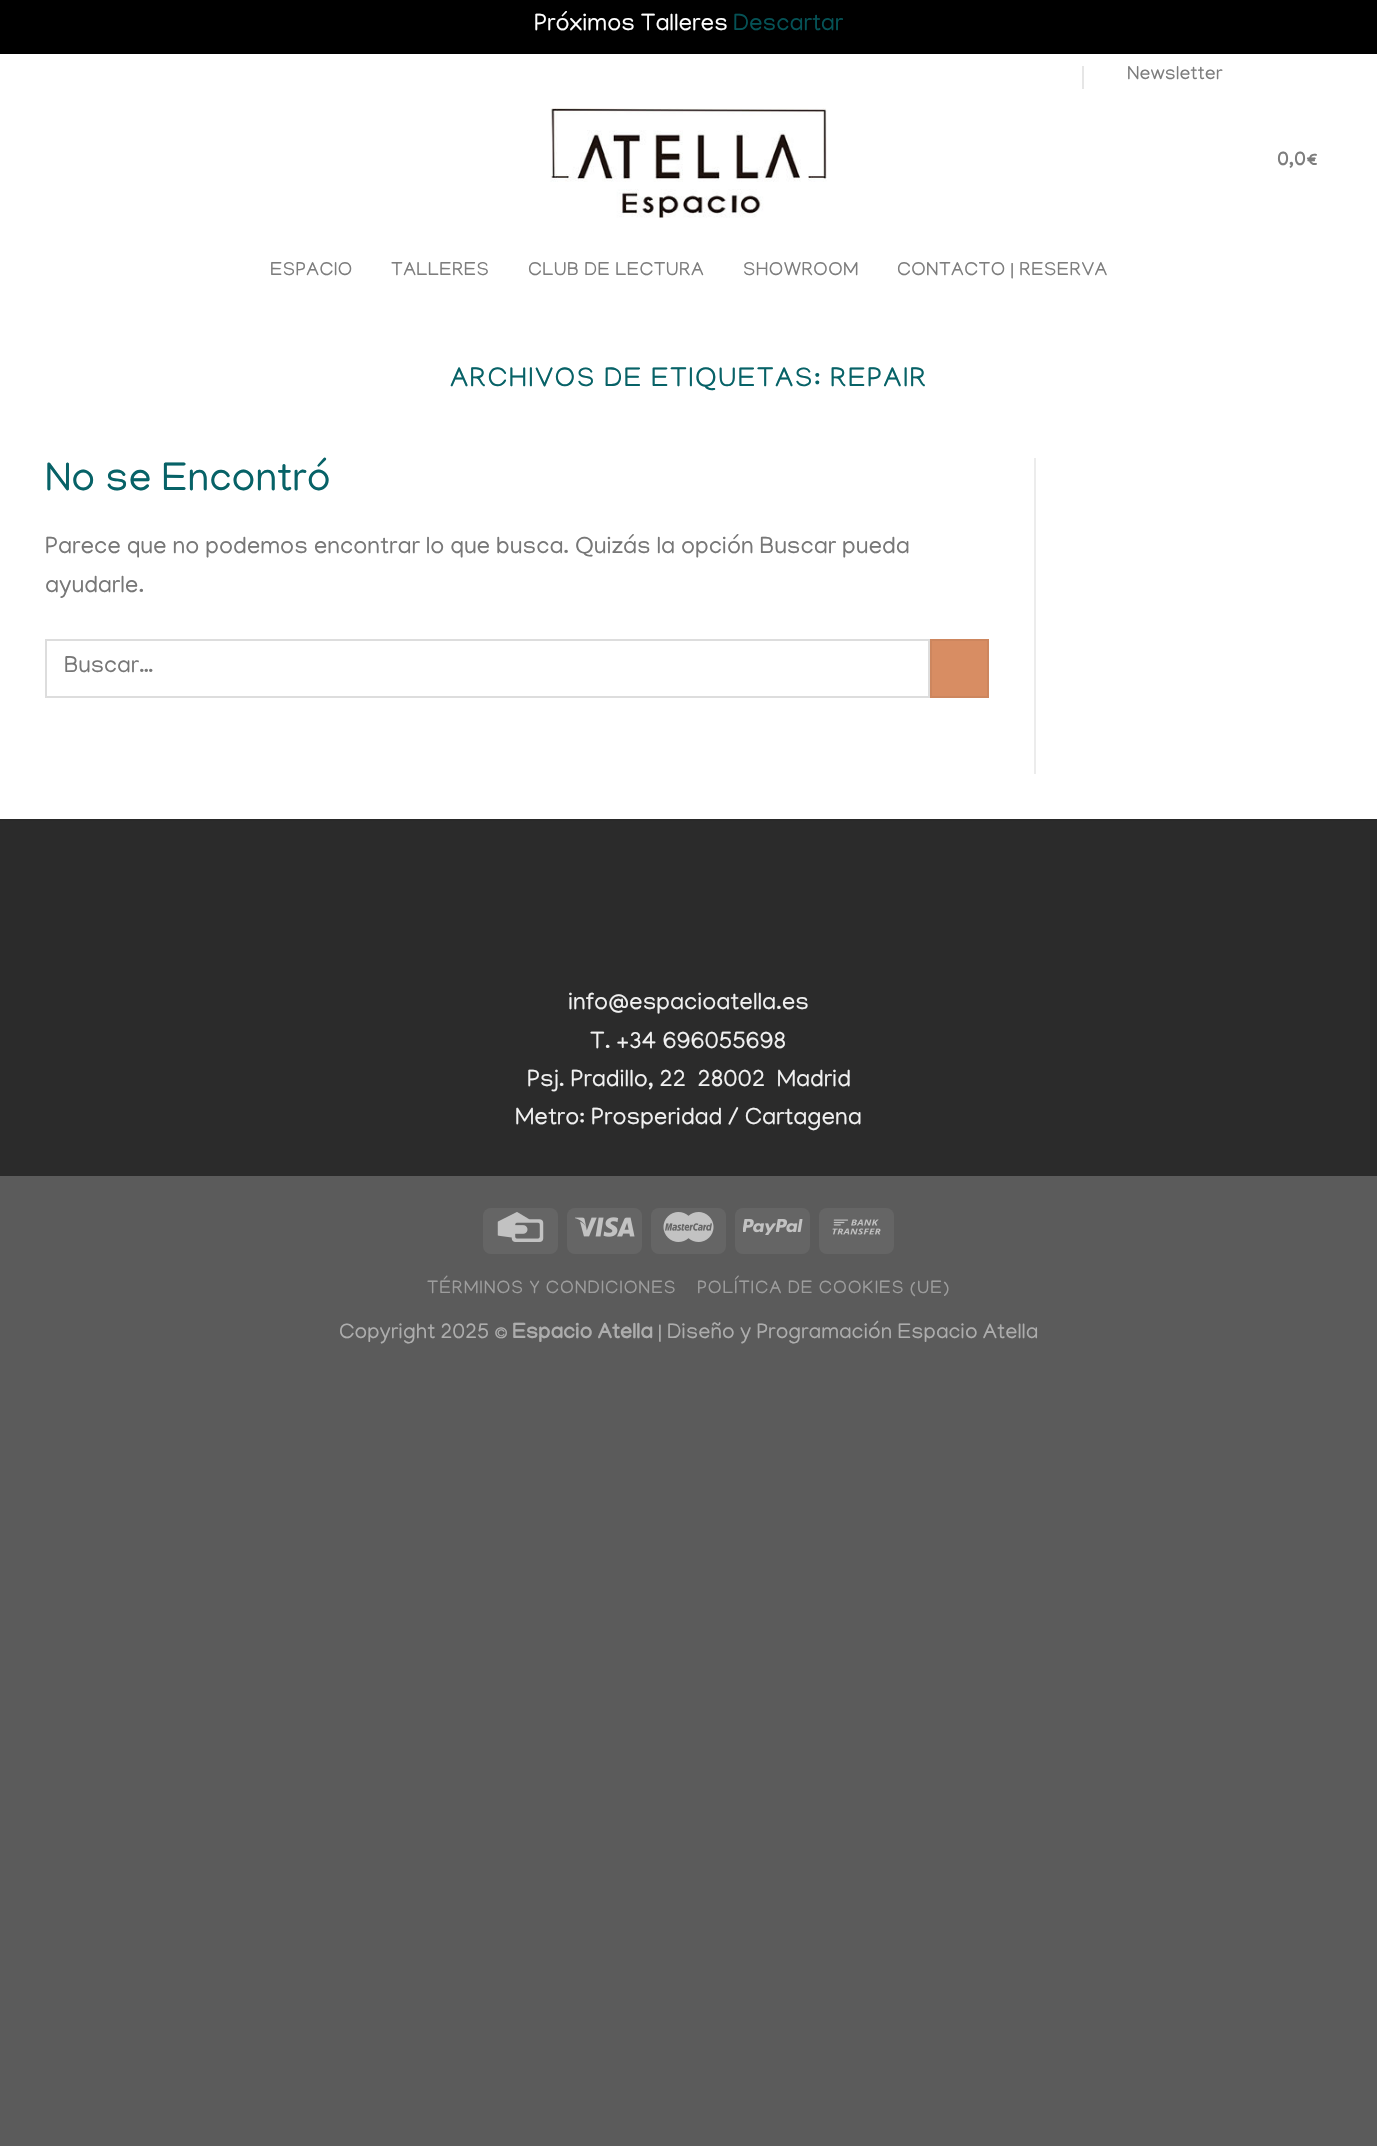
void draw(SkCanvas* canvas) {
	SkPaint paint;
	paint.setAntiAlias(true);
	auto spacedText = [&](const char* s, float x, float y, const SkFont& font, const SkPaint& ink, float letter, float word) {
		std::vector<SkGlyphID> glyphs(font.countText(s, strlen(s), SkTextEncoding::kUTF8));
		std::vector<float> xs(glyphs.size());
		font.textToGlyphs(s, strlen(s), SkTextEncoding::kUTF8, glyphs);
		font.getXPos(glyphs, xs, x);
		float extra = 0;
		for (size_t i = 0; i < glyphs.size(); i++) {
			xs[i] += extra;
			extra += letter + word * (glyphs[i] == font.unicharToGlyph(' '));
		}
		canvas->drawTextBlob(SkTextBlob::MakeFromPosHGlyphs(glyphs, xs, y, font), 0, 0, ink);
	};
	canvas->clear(0xff5b5b5b);
	paint.setColor(0xff000000);
	canvas->drawRect(SkRect::MakeXYWH(0, 0, 1377, 54), paint);
	SkFont f1(fontMgr->matchFamilyStyle("Manjari", SkFontStyle::Normal()), 24);
	f1.setSubpixel(true);
	paint.setColor(0xffffffff);
	canvas->drawString("Próximos Talleres", 534, 30, f1, paint);
	paint.setColor(0xff055256);
	canvas->drawString("Descartar", 733, 30, f1, paint);
	paint.setColor(0xffffffff);
	canvas->drawRect(SkRect::MakeXYWH(0, 54, 1377, 765), paint);
	paint.setColor(0xffe6e6e6);
	canvas->drawRect(SkRect::MakeXYWH(1082, 66, 2, 23), paint);
	SkFont f2(fontMgr->matchFamilyStyle("Manjari", SkFontStyle::Normal()), 19.25);
	f2.setSubpixel(true);
	paint.setColor(0xff7d7d7d);
	canvas->drawString("Newsletter", 1127, 79, f2, paint);
	canvas->drawImageRect(SkImages::DeferredFromEncodedData(SkData::MakeFromFileName("img1.png")), SkRect::MakeXYWH(550, 108, 277, 110), SkSamplingOptions());
	SkFont f3(fontMgr->matchFamilyStyle("Manjari", SkFontStyle::Bold()), 19.25);
	f3.setSubpixel(true);
	spacedText("0,0€", 1277, 165, f3, paint, 0.4, 0);
	spacedText("ESPACIO", 270, 275, f2, paint, 0.4, 0);
	spacedText("TALLERES", 391, 275, f2, paint, 0.4, 0);
	spacedText("CLUB DE LECTURA", 528, 275, f2, paint, 0.4, 0);
	spacedText("SHOWROOM", 743, 275, f2, paint, 0.4, 0);
	spacedText("CONTACTO | RESERVA", 897, 275, f2, paint, 0.4, 0);
	SkFont f4(fontMgr->matchFamilyStyle("Manjari", SkFontStyle::Normal()), 27.6);
	f4.setSubpixel(true);
	paint.setColor(0xff076267);
	spacedText("ARCHIVOS DE ETIQUETAS: REPAIR", 450, 386, f4, paint, 1.4, 0);
	SkFont f5(fontMgr->matchFamilyStyle("Manjari", SkFontStyle::Normal()), 40.75);
	f5.setSubpixel(true);
	canvas->drawString("No se Encontró", 45, 490, f5, paint);
	paint.setColor(0xff777777);
	canvas->drawString("Parece que no podemos encontrar lo que busca. Quizás la opción Buscar pueda", 45, 553, f1, paint);
	canvas->drawString("ayudarle.", 45, 592, f1, paint);
	paint.setStroke(true);
	paint.setStrokeWidth(2);
	paint.setColor(0xffdddddd);
	canvas->drawRect(SkRect::MakeXYWH(46, 640, 883, 57), paint);
	SkFont f6(fontMgr->matchFamilyStyle("Manjari", SkFontStyle::Normal()), 23.5);
	f6.setSubpixel(true);
	paint.setStroke(false);
	paint.setColor(0xff777777);
	canvas->drawString("Buscar…", 64, 672, f6, paint);
	paint.setColor(0xffd88d63);
	canvas->drawRect(SkRect::MakeXYWH(931, 640, 57, 57), paint);
	paint.setStroke(true);
	paint.setColor(0xffcd865e);
	canvas->drawRect(SkRect::MakeXYWH(931, 640, 57, 57), paint);
	paint.setStroke(false);
	paint.setColor(0xffececec);
	canvas->drawRect(SkRect::MakeXYWH(1034, 458, 2, 316), paint);
	paint.setColor(0xff2b2b2b);
	canvas->drawRect(SkRect::MakeXYWH(0, 821, 1377, 355), paint);
	paint.setColor(0xff292929);
	canvas->drawRect(SkRect::MakeXYWH(0, 819, 1377, 2), paint);
	paint.setColor(0xfff1f1f1);
	canvas->drawString("info@espacioatella.es", 568, 1009, f1, paint);
	canvas->drawString("T. +34 696055698", 590, 1048, f1, paint);
	canvas->drawString("Psj. Pradillo, 22  28002  Madrid", 527, 1086, f1, paint);
	canvas->drawString("Metro: Prosperidad / Cartagena", 515, 1124, f1, paint);
	paint.setColor(0xff656565);
	canvas->drawRoundRect(SkRect::MakeXYWH(483, 1208, 75, 46), 8, 8, paint);
	canvas->drawImageRect(SkImages::DeferredFromEncodedData(SkData::MakeFromFileName("img2.png")), SkRect::MakeXYWH(497, 1212, 47, 30), SkSamplingOptions());
	canvas->drawRoundRect(SkRect::MakeXYWH(567, 1208, 75, 46), 8, 8, paint);
	canvas->drawImageRect(SkImages::DeferredFromEncodedData(SkData::MakeFromFileName("img3.png")), SkRect::MakeXYWH(575, 1217, 60, 20), SkSamplingOptions());
	canvas->drawRoundRect(SkRect::MakeXYWH(651, 1208, 75, 46), 8, 8, paint);
	canvas->drawImageRect(SkImages::DeferredFromEncodedData(SkData::MakeFromFileName("img4.png")), SkRect::MakeXYWH(663, 1212, 51, 30), SkSamplingOptions());
	canvas->drawRoundRect(SkRect::MakeXYWH(735, 1208, 75, 46), 8, 8, paint);
	canvas->drawImageRect(SkImages::DeferredFromEncodedData(SkData::MakeFromFileName("img5.png")), SkRect::MakeXYWH(743, 1219, 60, 16), SkSamplingOptions());
	canvas->drawRoundRect(SkRect::MakeXYWH(819, 1208, 75, 46), 8, 8, paint);
	canvas->drawImageRect(SkImages::DeferredFromEncodedData(SkData::MakeFromFileName("img6.png")), SkRect::MakeXYWH(832, 1219, 49, 16), SkSamplingOptions());
	SkFont f7(fontMgr->matchFamilyStyle("Manjari", SkFontStyle::Normal()), 18.4);
	f7.setSubpixel(true);
	paint.setColor(0xff9d9d9d);
	spacedText("TÉRMINOS Y CONDICIONES", 427, 1293, f7, paint, 0.9, 0);
	spacedText("POLÍTICA DE COOKIES (UE)", 697, 1293, f7, paint, 0.9, 0);
	SkFont f8(fontMgr->matchFamilyStyle("Manjari", SkFontStyle::Normal()), 21.6);
	f8.setSubpixel(true);
	paint.setColor(0xffadadad);
	canvas->drawString("Copyright 2025 ©", 339, 1338, f8, paint);
	SkFont f9(fontMgr->matchFamilyStyle("Manjari", SkFontStyle::Bold()), 21.6);
	f9.setSubpixel(true);
	canvas->drawString("Espacio Atella", 512, 1338, f9, paint);
	canvas->drawString("| Diseño y Programación Espacio Atella", 658, 1338, f8, paint);
}
